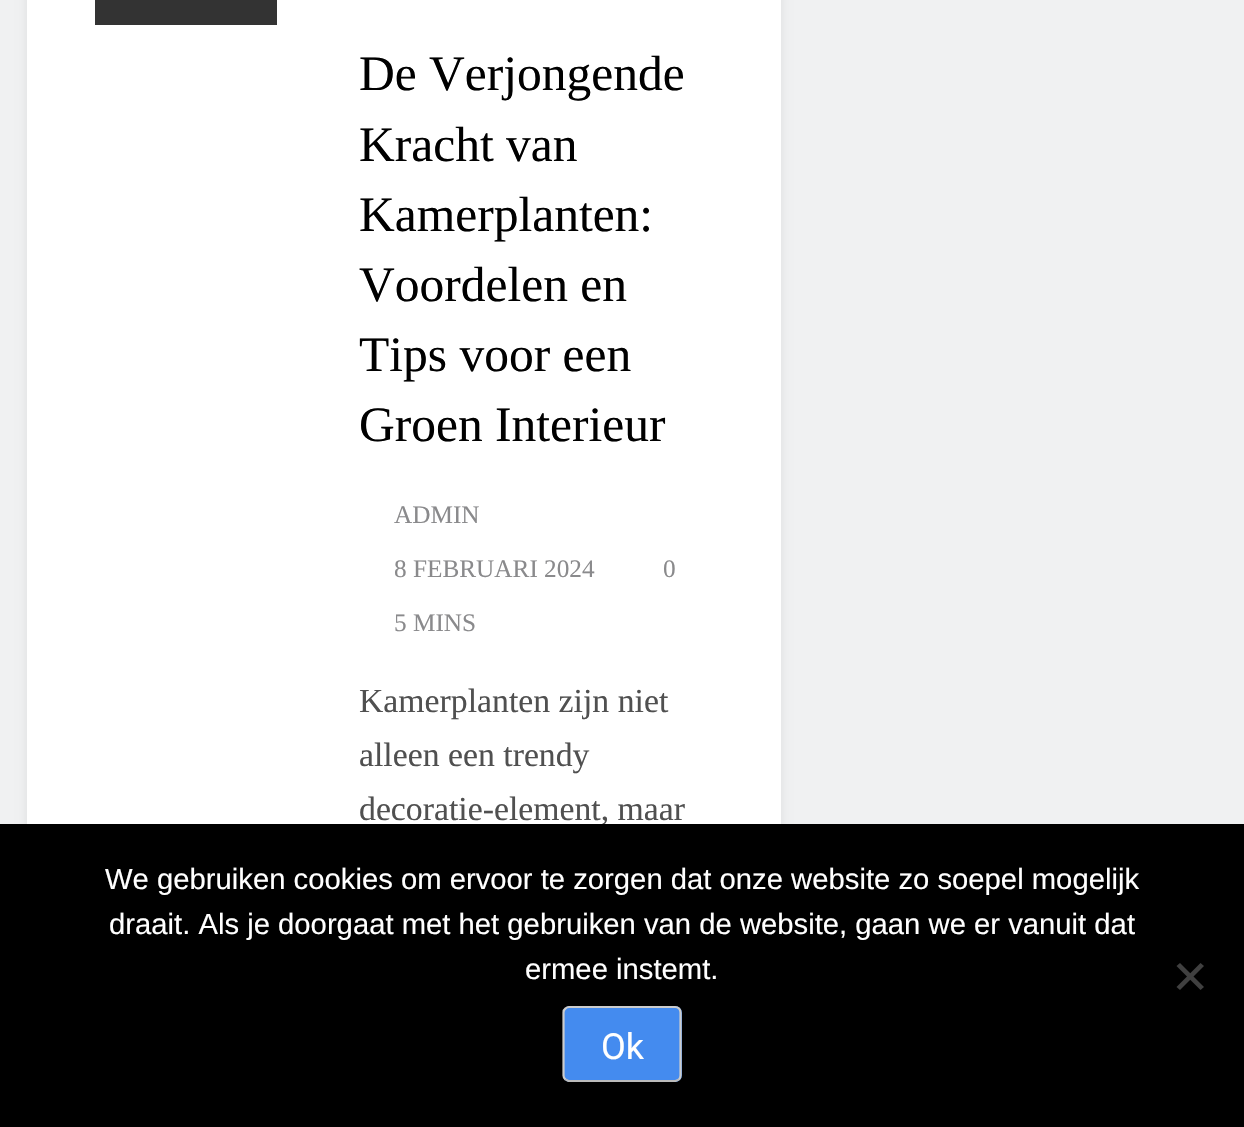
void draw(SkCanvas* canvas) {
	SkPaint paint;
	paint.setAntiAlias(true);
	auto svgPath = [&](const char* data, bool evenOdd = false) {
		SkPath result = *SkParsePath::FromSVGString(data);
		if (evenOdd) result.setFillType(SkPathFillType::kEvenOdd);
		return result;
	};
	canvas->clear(0xfff0f1f2);
	paint.setColor(0x14000000);
	paint.setMaskFilter(SkMaskFilter::MakeBlur(kNormal_SkBlurStyle, 4.5));
	canvas->drawRect(SkRect::MakeXYWH(27, -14, 754, 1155), paint);
	paint.setMaskFilter(nullptr);
	paint.setColor(0xffffffff);
	canvas->drawRect(SkRect::MakeXYWH(27, 0, 754, 824), paint);
	paint.setColor(0xff333333);
	canvas->drawRect(SkRect::MakeXYWH(95, 0, 182, 25), paint);
	SkFont f1(fontMgr->matchFamilyStyle("Liberation Serif", SkFontStyle::Normal()), 49.5);
	f1.setSubpixel(true);
	paint.setColor(0xff000000);
	canvas->drawString("De Verjongende", 359, 90, f1, paint);
	canvas->drawString("Kracht van", 359, 161, f1, paint);
	canvas->drawString("Kamerplanten:", 359, 231, f1, paint);
	canvas->drawString("Voordelen en", 359, 301, f1, paint);
	canvas->drawString("Tips voor een", 359, 371, f1, paint);
	canvas->drawString("Groen Interieur", 359, 441, f1, paint);
	SkFont f2(fontMgr->matchFamilyStyle("Liberation Serif", SkFontStyle::Normal()), 25.25);
	f2.setSubpixel(true);
	paint.setColor(0xff8a8a8c);
	canvas->drawString("ADMIN", 394, 523, f2, paint);
	canvas->drawString("8 FEBRUARI 2024", 394, 577, f2, paint);
	canvas->drawString("0", 663, 577, f2, paint);
	canvas->drawString("5 MINS", 394, 631, f2, paint);
	SkFont f3(fontMgr->matchFamilyStyle("Liberation Serif", SkFontStyle::Normal()), 33.75);
	f3.setSubpixel(true);
	paint.setColor(0xff505050);
	canvas->drawString("Kamerplanten zijn niet", 359, 712, f3, paint);
	canvas->drawString("alleen een trendy", 359, 766, f3, paint);
	canvas->drawString("decoratie-element, maar", 359, 820, f3, paint);
	paint.setColor(0xff000000);
	canvas->drawRect(SkRect::MakeXYWH(0, 824, 1244, 303), paint);
	SkFont f4(fontMgr->matchFamilyStyle("Liberation Sans", SkFontStyle::Normal()), 29.25);
	f4.setSubpixel(true);
	paint.setColor(0xffffffff);
	canvas->drawString("We gebruiken cookies om ervoor te zorgen dat onze website zo soepel mogelijk", 105, 889, f4, paint);
	canvas->drawString("draait. Als je doorgaat met het gebruiken van de website, gaan we er vanuit dat", 109, 934, f4, paint);
	canvas->drawString("ermee instemt.", 525, 979, f4, paint);
	paint.setColor(0xff404040);
	canvas->drawPath(svgPath("M1200.5 963L1204 966L1180 990L1176.5 987Z"), paint);
	canvas->drawPath(svgPath("M1176.5 966L1180 963L1204 987L1200.5 990Z"), paint);
	paint.setColor(0xff448bef);
	canvas->drawRoundRect(SkRect::MakeXYWH(563, 1006, 119, 76), 7, 7, paint);
	paint.setStroke(true);
	paint.setStrokeWidth(2.2);
	paint.setColor(0xffbbbbbb);
	canvas->drawPath(svgPath("M679 1079.5L675.5 1081H568.5L565.5 1079.5"), paint);
	paint.setColor(0xffcccccc);
	canvas->drawPath(svgPath("M565.5 1079.5C564 1078.5 563.5 1077 563.5 1075.5V1012.5C563.5 1011 564 1009.5 565.5 1008.5C566.5 1007.5 568 1007 569 1007H675C676.5 1007 678 1007.5 679 1008.5C680 1009.5 680.5 1011 680.5 1012.5V1075.5C680.5 1077 680 1078.5 679 1079.5"), paint);
	SkFont f5(fontMgr->matchFamilyStyle("Roboto", SkFontStyle::Normal()), 36);
	f5.setSubpixel(true);
	paint.setStroke(false);
	paint.setColor(0xffffffff);
	canvas->drawString("Ok", 601, 1059, f5, paint);
}
